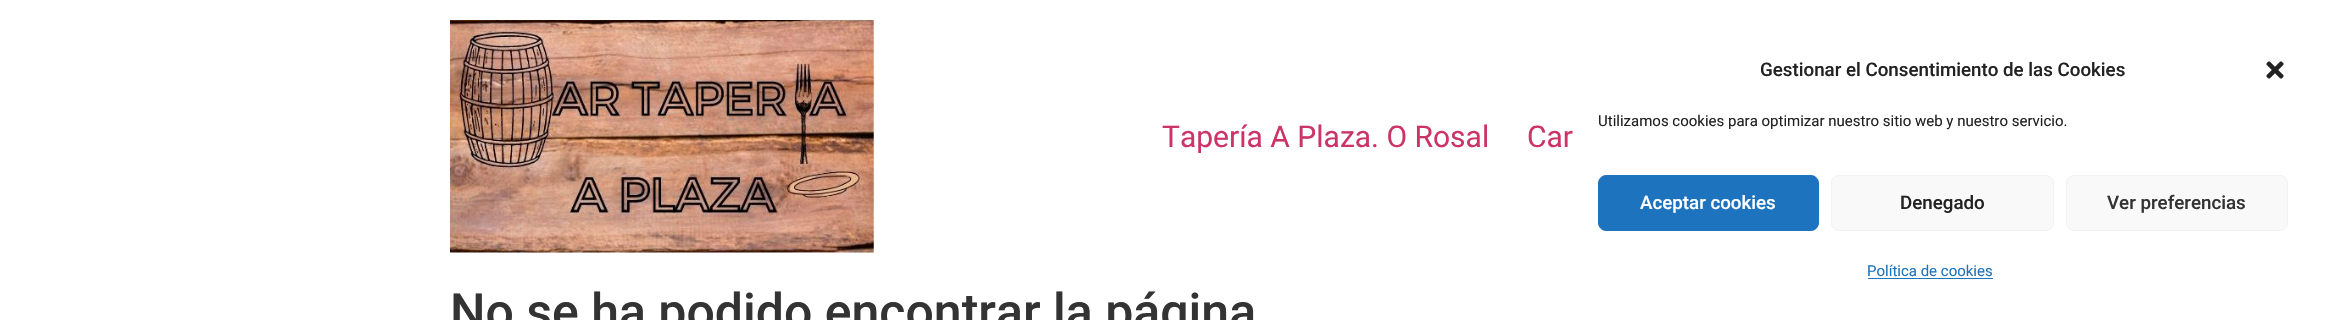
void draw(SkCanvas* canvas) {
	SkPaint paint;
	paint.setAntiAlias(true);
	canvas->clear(0xffffffff);
	canvas->drawImageRect(SkImages::DeferredFromEncodedData(SkData::MakeFromFileName("img1.png")), SkRect::MakeXYWH(450, 20, 424, 233), SkSamplingOptions());
	SkFont f1(fontMgr->matchFamilyStyle("Roboto", SkFontStyle::Normal()), 30);
	f1.setSubpixel(true);
	paint.setColor(0xffcc3366);
	canvas->drawString("Tapería A Plaza. O Rosal", 1162, 147, f1, paint);
	canvas->drawString("Car", 1527, 147, f1, paint);
	SkFont f2(fontMgr->matchFamilyStyle("Roboto", SkFontStyle(500, SkFontStyle::kNormal_Width, SkFontStyle::kUpright_Slant)), 18.75);
	f2.setSubpixel(true);
	paint.setColor(0xff222222);
	canvas->drawString("Gestionar el Consentimiento de las Cookies", 1760, 76, f2, paint);
	canvas->drawImageRect(SkImages::DeferredFromEncodedData(SkData::MakeFromFileName("img2.png")), SkRect::MakeXYWH(2266, 61, 18, 18), SkSamplingOptions());
	SkFont f3(fontMgr->matchFamilyStyle("Roboto", SkFontStyle::Normal()), 15);
	f3.setSubpixel(true);
	canvas->drawString("Utilizamos cookies para optimizar nuestro sitio web y nuestro servicio.", 1598, 126, f3, paint);
	paint.setColor(0xff1e73be);
	canvas->drawRoundRect(SkRect::MakeXYWH(1598.5, 175.5, 220, 55), 7.5, 7.5, paint);
	paint.setStroke(true);
	paint.setStrokeWidth(1);
	canvas->drawRoundRect(SkRect::MakeXYWH(1598.5, 175.5, 220, 55), 7.5, 7.5, paint);
	paint.setStroke(false);
	paint.setColor(0xffffffff);
	canvas->drawString("Aceptar cookies", 1640, 209, f2, paint);
	paint.setColor(0xfff9f9f9);
	canvas->drawRoundRect(SkRect::MakeXYWH(1831.5, 175.5, 222, 55), 7.5, 7.5, paint);
	paint.setStroke(true);
	paint.setColor(0xfff2f2f2);
	canvas->drawRoundRect(SkRect::MakeXYWH(1831.5, 175.5, 222, 55), 7.5, 7.5, paint);
	paint.setStroke(false);
	paint.setColor(0xff222222);
	canvas->drawString("Denegado", 1900, 209, f2, paint);
	paint.setColor(0xfff9f9f9);
	canvas->drawRoundRect(SkRect::MakeXYWH(2066.5, 175.5, 221, 55), 7.5, 7.5, paint);
	paint.setStroke(true);
	paint.setColor(0xfff2f2f2);
	canvas->drawRoundRect(SkRect::MakeXYWH(2066.5, 175.5, 221, 55), 7.5, 7.5, paint);
	paint.setStroke(false);
	paint.setColor(0xff333333);
	canvas->drawString("Ver preferencias", 2107, 209, f2, paint);
	paint.setColor(0xff1e73be);
	canvas->drawString("Política de cookies", 1867, 276, f3, paint);
	canvas->drawRect(SkRect::MakeXYWH(1868, 278, 125, 1), paint);
	SkFont f4(fontMgr->matchFamilyStyle("Roboto", SkFontStyle(500, SkFontStyle::kNormal_Width, SkFontStyle::kUpright_Slant)), 50);
	f4.setSubpixel(true);
	paint.setColor(0xff333333);
	canvas->drawString("No se ha podido encontrar la página", 450, 329, f4, paint);
}
